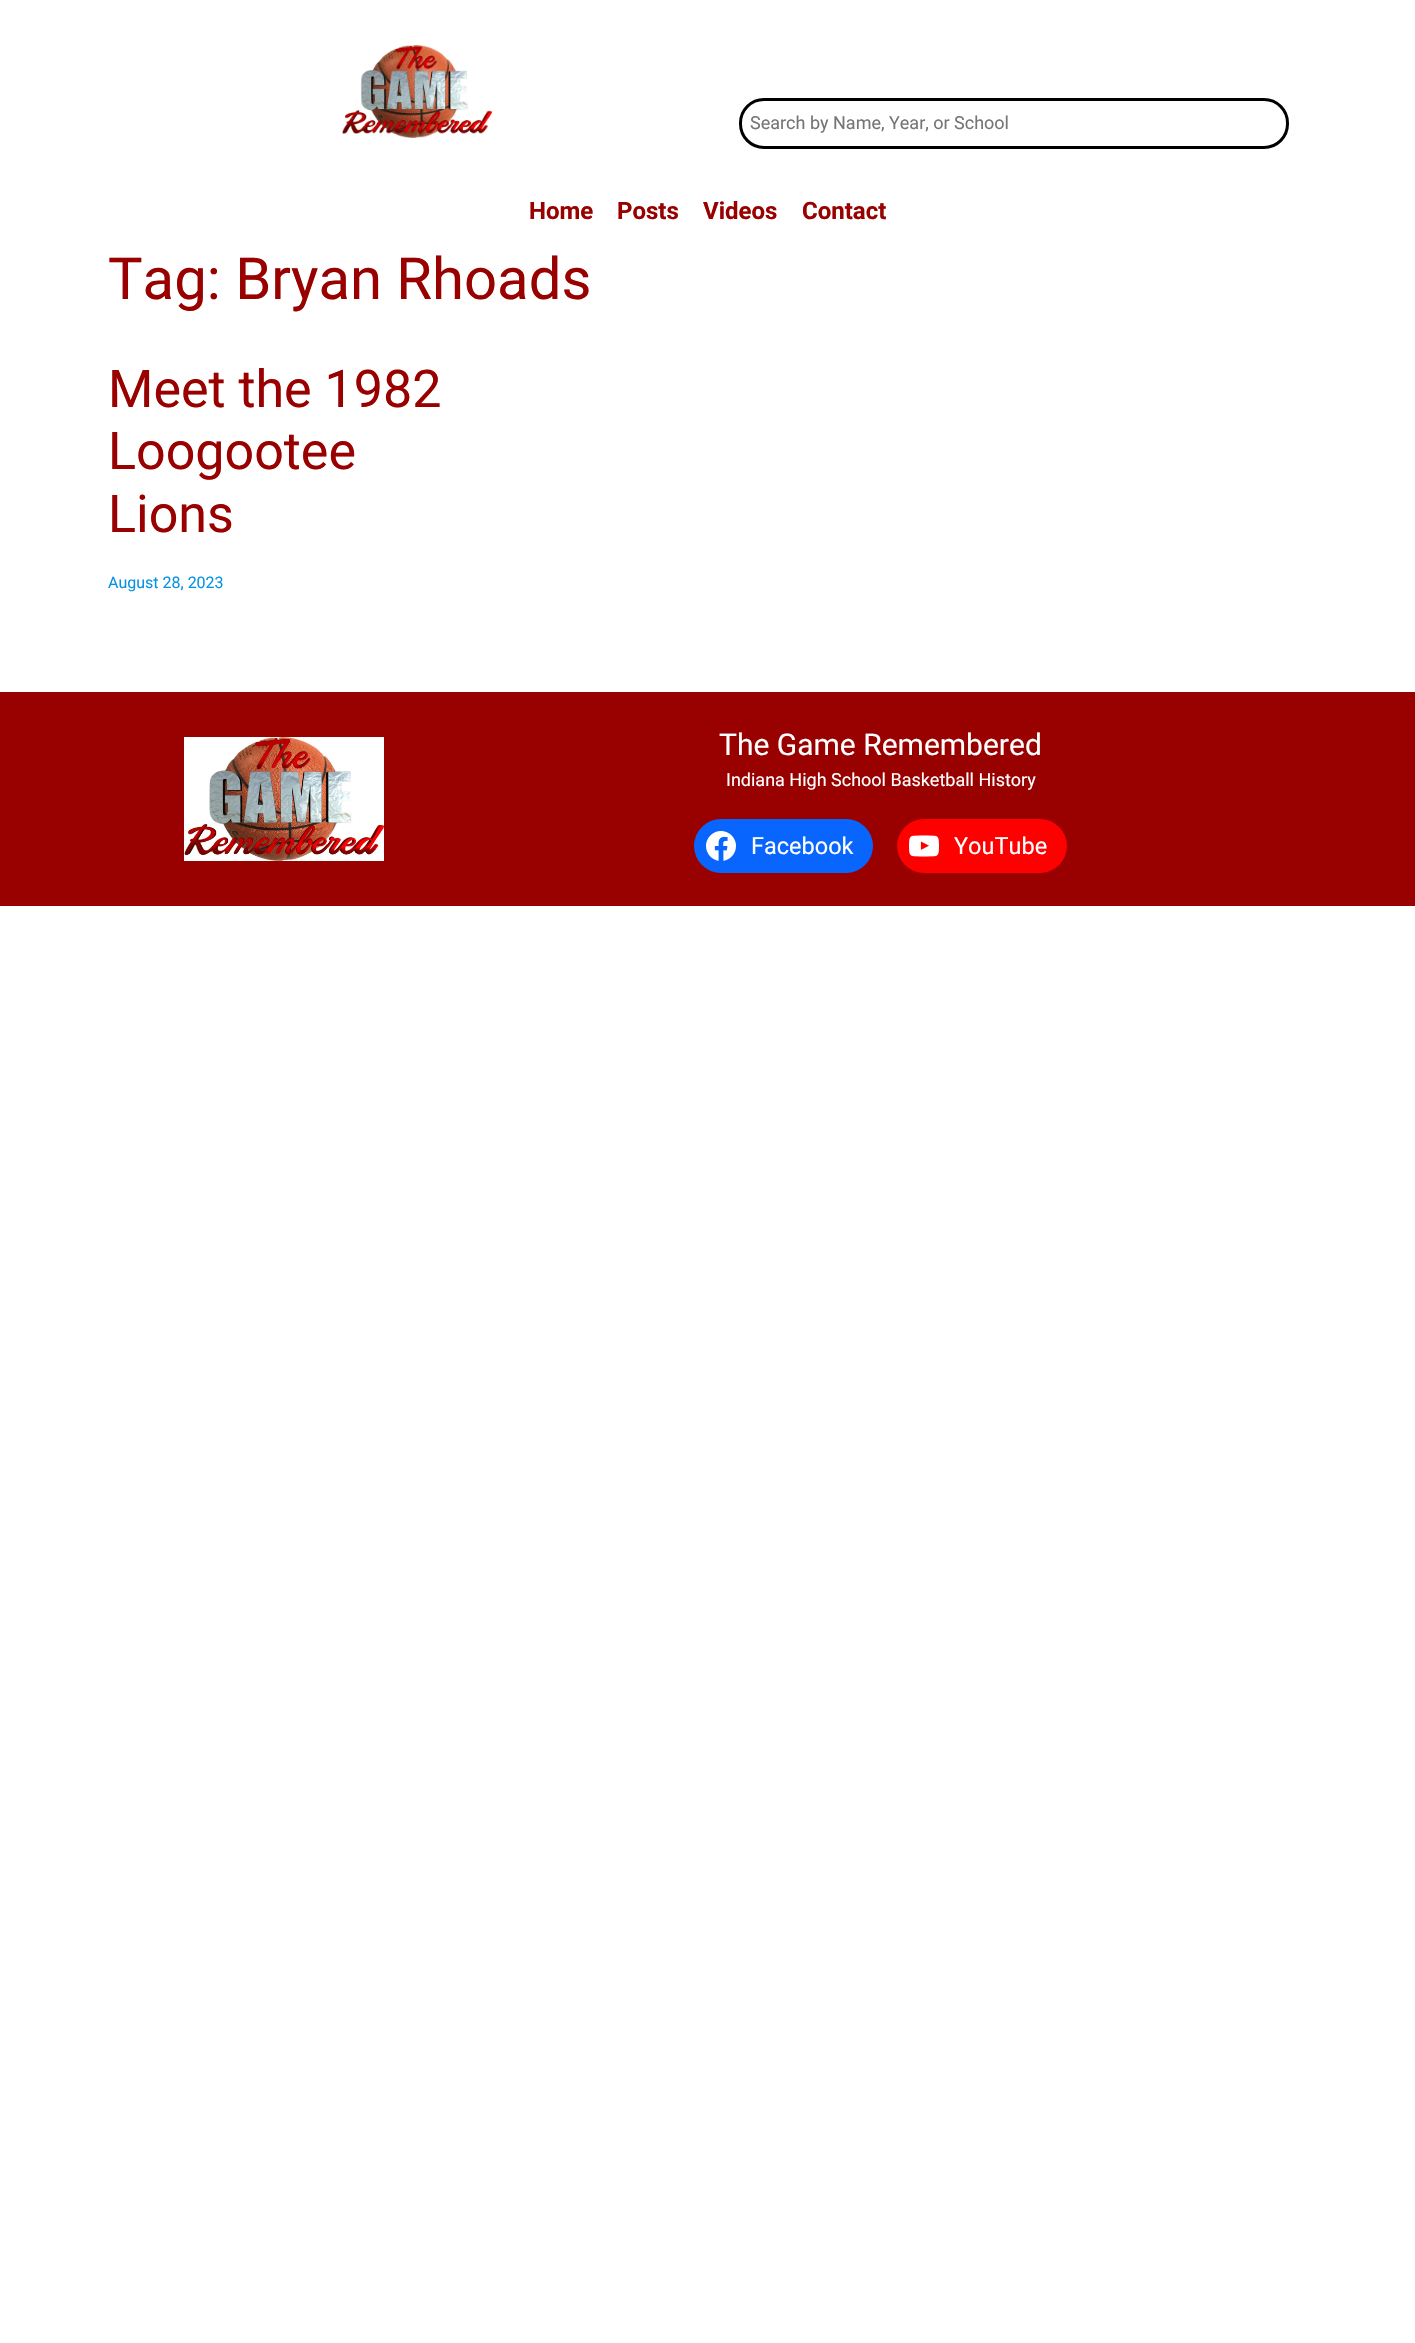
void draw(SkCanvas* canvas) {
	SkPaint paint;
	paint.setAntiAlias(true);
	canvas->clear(0xffffffff);
	canvas->drawImageRect(SkImages::DeferredFromEncodedData(SkData::MakeFromFileName("img1.png")), SkRect::MakeXYWH(342, 45, 150, 93), SkSamplingOptions());
	paint.setStroke(true);
	paint.setStrokeWidth(3);
	paint.setColor(0xff000000);
	canvas->drawRoundRect(SkRect::MakeXYWH(740.5, 99.5, 547, 48), 23.5, 23.5, paint);
	SkFont f1(fontMgr->matchFamilyStyle("Roboto", SkFontStyle::Normal()), 18);
	f1.setSubpixel(true);
	paint.setStroke(false);
	paint.setColor(0xff757575);
	canvas->drawString("Search by Name, Year, or School", 750, 129, f1, paint);
	SkFont f2(fontMgr->matchFamilyStyle("Roboto", SkFontStyle::Bold()), 24);
	f2.setSubpixel(true);
	paint.setColor(0xff990000);
	canvas->drawString("Home", 529, 219, f2, paint);
	canvas->drawString("Posts", 617, 219, f2, paint);
	canvas->drawString("Videos", 703, 219, f2, paint);
	canvas->drawString("Contact", 802, 219, f2, paint);
	SkFont f3(fontMgr->matchFamilyStyle("Roboto", SkFontStyle::Normal()), 58);
	f3.setSubpixel(true);
	canvas->drawString("Tag: Bryan Rhoads", 108, 299, f3, paint);
	SkFont f4(fontMgr->matchFamilyStyle("Roboto", SkFontStyle::Normal()), 52);
	f4.setSubpixel(true);
	canvas->drawString("Meet the 1982", 108, 407, f4, paint);
	canvas->drawString("Loogootee", 108, 469, f4, paint);
	canvas->drawString("Lions", 108, 532, f4, paint);
	SkFont f5(fontMgr->matchFamilyStyle("Roboto", SkFontStyle::Normal()), 16);
	f5.setSubpixel(true);
	paint.setColor(0xff0693e3);
	canvas->drawString("August 28, 2023", 108, 588, f5, paint);
	paint.setColor(0xff990000);
	canvas->drawRect(SkRect::MakeXYWH(0, 692, 1415, 214), paint);
	canvas->drawImageRect(SkImages::DeferredFromEncodedData(SkData::MakeFromFileName("img2.png")), SkRect::MakeXYWH(184, 737, 200, 124), SkSamplingOptions());
	SkFont f6(fontMgr->matchFamilyStyle("Roboto", SkFontStyle::Normal()), 30);
	f6.setSubpixel(true);
	paint.setColor(0xffffffff);
	canvas->drawString("The Game Remembered", 719, 755, f6, paint);
	canvas->drawString("Indiana High School Basketball History", 726, 786, f1, paint);
	paint.setColor(0xff0866ff);
	canvas->drawRoundRect(SkRect::MakeXYWH(694, 819, 179, 54), 27, 27, paint);
	canvas->drawImageRect(SkImages::DeferredFromEncodedData(SkData::MakeFromFileName("img3.png")), SkRect::MakeXYWH(706, 831, 30, 30), SkSamplingOptions());
	SkFont f7(fontMgr->matchFamilyStyle("Roboto", SkFontStyle::Normal()), 23.5);
	f7.setSubpixel(true);
	paint.setColor(0xffffffff);
	canvas->drawString("Facebook", 751, 854, f7, paint);
	paint.setColor(0xffff0000);
	canvas->drawRoundRect(SkRect::MakeXYWH(897, 819, 170, 54), 27, 27, paint);
	canvas->drawImageRect(SkImages::DeferredFromEncodedData(SkData::MakeFromFileName("img4.png")), SkRect::MakeXYWH(909, 835, 30, 22), SkSamplingOptions());
	paint.setColor(0xffffffff);
	canvas->drawString("YouTube", 954, 854, f7, paint);
}
